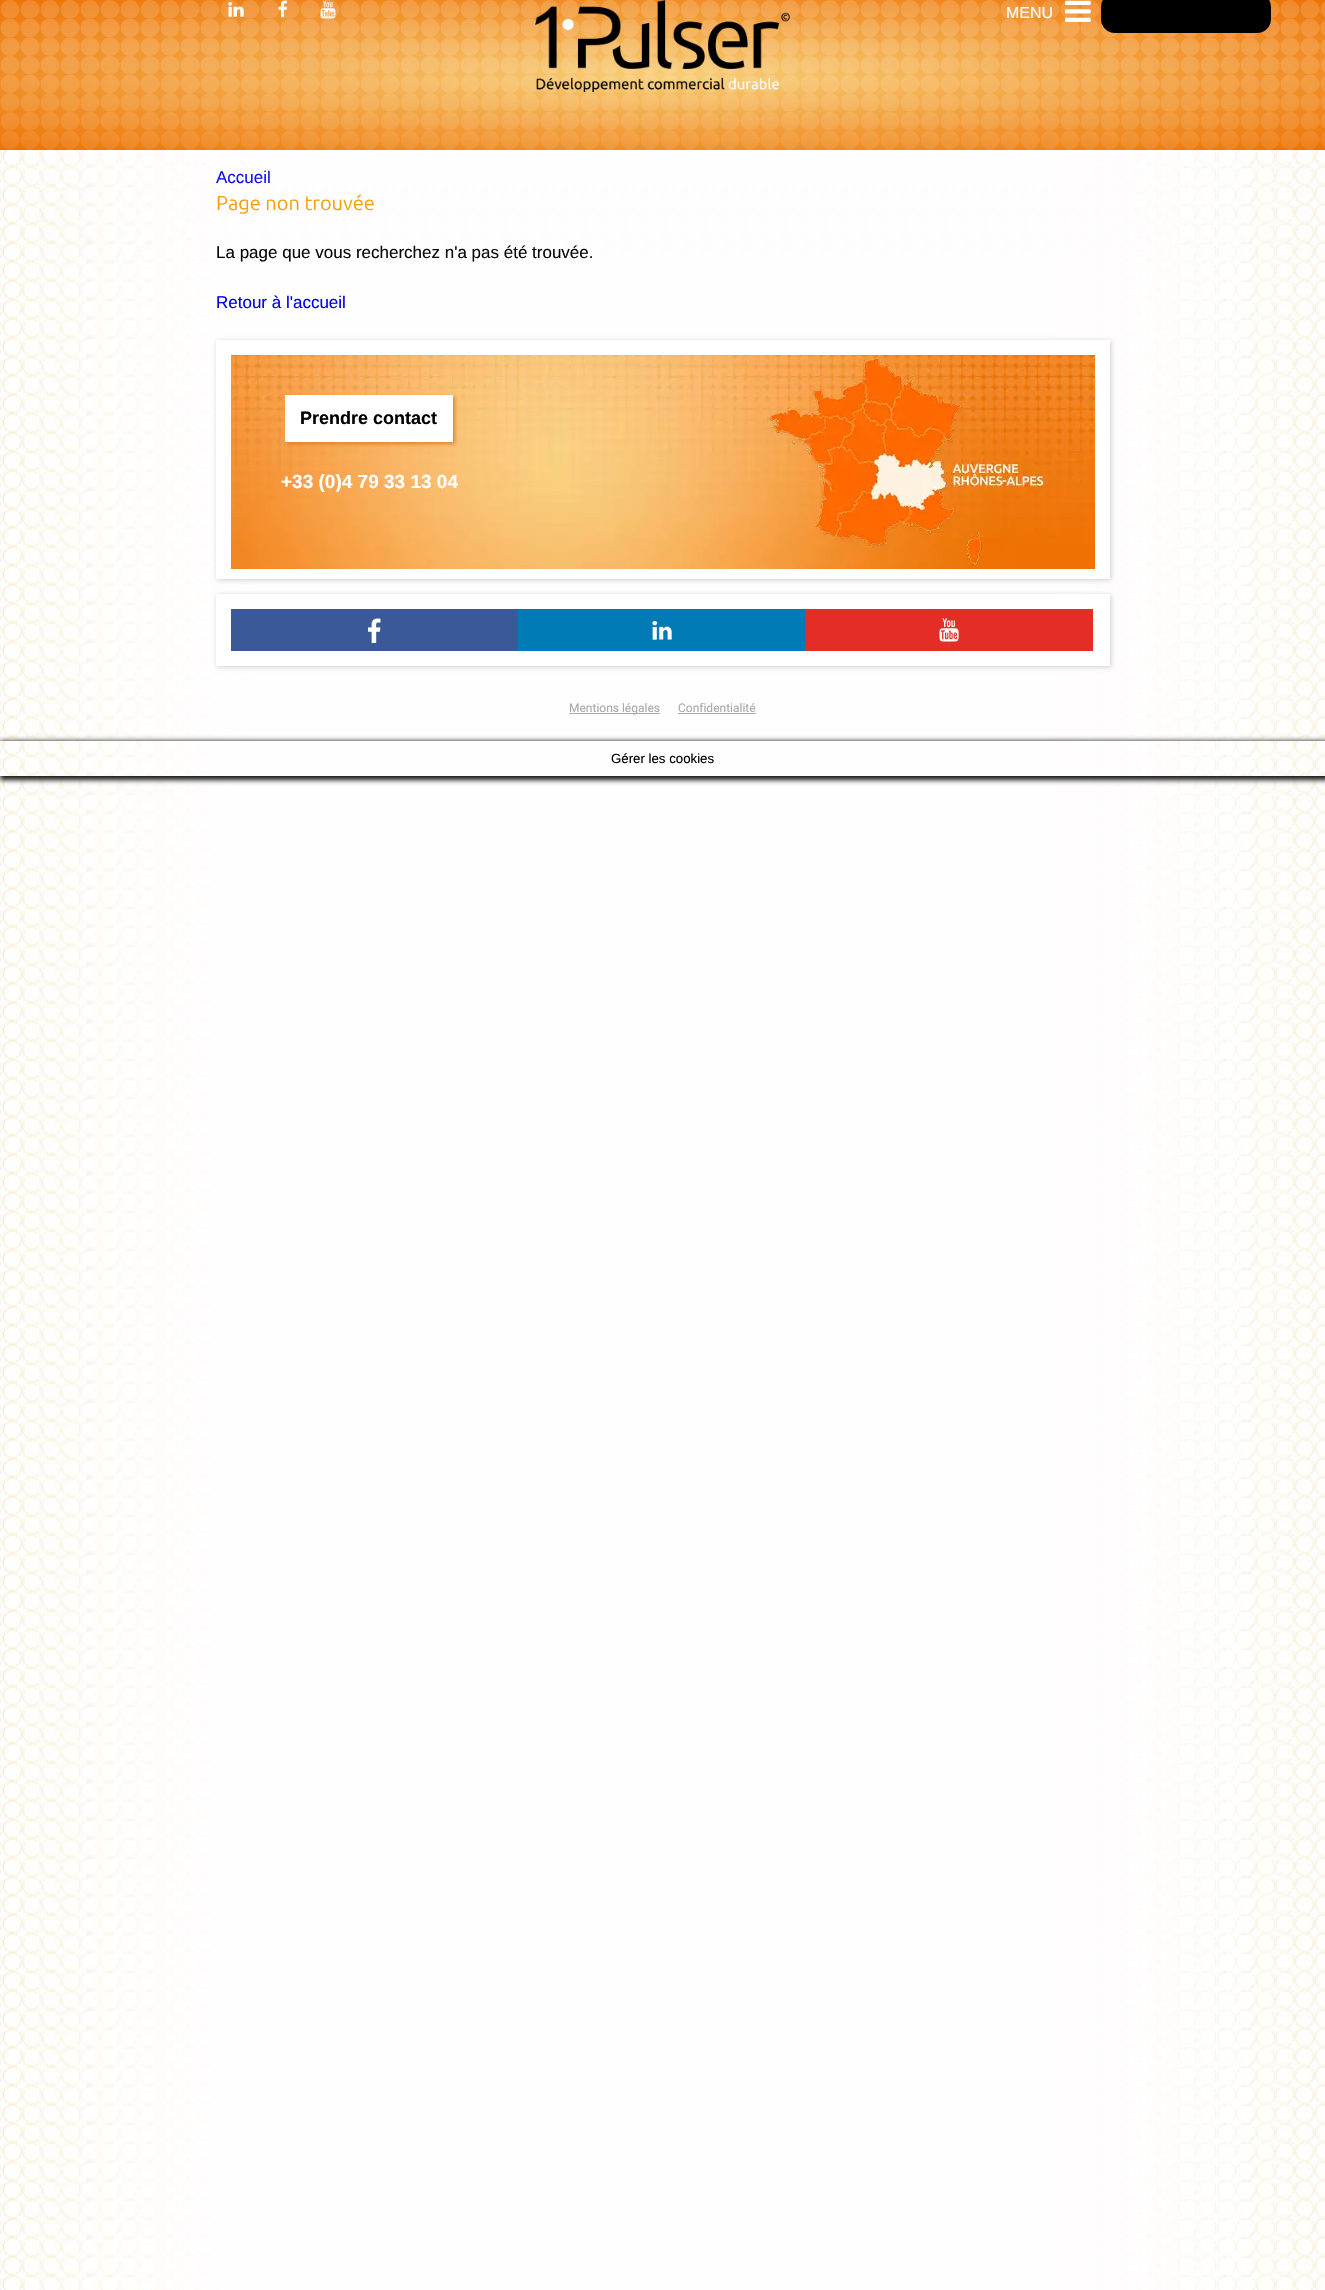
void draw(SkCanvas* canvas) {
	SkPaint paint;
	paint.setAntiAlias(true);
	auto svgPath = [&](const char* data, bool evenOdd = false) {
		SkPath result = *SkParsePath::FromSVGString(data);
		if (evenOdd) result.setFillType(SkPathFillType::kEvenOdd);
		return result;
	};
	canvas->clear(0xffffffff);
	canvas->drawImageRect(SkImages::DeferredFromEncodedData(SkData::MakeFromFileName("img1.png")), SkRect::MakeXYWH(0, 150, 1325, 2140), SkSamplingOptions());
	{
		const SkColor colors[] = {0xfff8ce77, 0xffee7203};
		const float stops[] = {0, 1};
		SkMatrix m = SkMatrix::Translate(663, 75).preScale(937, 106);
		paint.setShader(SkGradientShader::MakeRadial({0, 0}, 1, colors, stops, 2, SkTileMode::kClamp, 0, &m));
		paint.setAlpha(255);
	}
	canvas->drawRect(SkRect::MakeXYWH(0, 0, 1325, 150), paint);
	SkFont f1(fontMgr->matchFamilyStyle("Liberation Sans", SkFontStyle::Normal()), 17);
	f1.setSubpixel(true);
	paint.setShader(nullptr);
	paint.setColor(0xff0000ee);
	canvas->drawString("Accueil", 216, 183, f1, paint);
	SkFont f2(fontMgr->matchFamilyStyle("Ubuntu", SkFontStyle::Normal()), 20);
	f2.setSubpixel(true);
	paint.setColor(0xfff59c00);
	canvas->drawString("Page non trouvée", 216, 210, f2, paint);
	paint.setColor(0xff000000);
	canvas->drawString("La page que vous recherchez n'a pas été trouvée.", 216, 258, f1, paint);
	canvas->drawImageRect(SkImages::DeferredFromEncodedData(SkData::MakeFromFileName("img2.png")), SkRect::MakeXYWH(0, 0, 1325, 262), SkSamplingOptions());
	canvas->drawImageRect(SkImages::DeferredFromEncodedData(SkData::MakeFromFileName("img3.png")), SkRect::MakeXYWH(228, 2, 16, 15), SkSamplingOptions());
	canvas->drawImageRect(SkImages::DeferredFromEncodedData(SkData::MakeFromFileName("img4.png")), SkRect::MakeXYWH(278, 0, 9, 18), SkSamplingOptions());
	canvas->drawImageRect(SkImages::DeferredFromEncodedData(SkData::MakeFromFileName("img5.png")), SkRect::MakeXYWH(320, 0, 16, 19), SkSamplingOptions());
	canvas->drawImageRect(SkImages::DeferredFromEncodedData(SkData::MakeFromFileName("img6.png")), SkRect::MakeXYWH(535, 0, 255, 92), SkSamplingOptions());
	canvas->drawImageRect(SkImages::DeferredFromEncodedData(SkData::MakeFromFileName("img7.png")), SkRect::MakeXYWH(1065, 0, 26, 22), SkSamplingOptions());
	SkFont f3(fontMgr->matchFamilyStyle("Liberation Sans", SkFontStyle::Normal()), 16);
	f3.setSubpixel(true);
	paint.setColor(0xffffffff);
	canvas->drawString("MENU", 1006, 18, f3, paint);
	paint.setColor(0xff000000);
	canvas->drawRoundRect(SkRect::MakeXYWH(1101, -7, 170, 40), 14, 14, paint);
	paint.setColor(0xff0000ee);
	canvas->drawString("Retour à l'accueil", 216, 308, f1, paint);
	paint.setColor(0xffcfcfcf);
	paint.setMaskFilter(SkMaskFilter::MakeBlur(kNormal_SkBlurStyle, 2.5));
	canvas->drawRect(SkRect::MakeXYWH(217, 341, 894, 239), paint);
	paint.setMaskFilter(nullptr);
	paint.setColor(0xffffffff);
	canvas->drawRect(SkRect::MakeXYWH(216, 340, 894, 239), paint);
	canvas->drawImageRect(SkImages::DeferredFromEncodedData(SkData::MakeFromFileName("img8.png")), SkRect::MakeXYWH(231, 355, 864, 214), SkSamplingOptions());
	paint.setColor(0xffdb832f);
	paint.setMaskFilter(SkMaskFilter::MakeBlur(kNormal_SkBlurStyle, 2));
	canvas->drawRect(SkRect::MakeXYWH(287, 397, 168, 47), paint);
	paint.setMaskFilter(nullptr);
	paint.setColor(0xffffffff);
	canvas->drawRect(SkRect::MakeXYWH(285, 395, 168, 47), paint);
	SkFont f4(fontMgr->matchFamilyStyle("Liberation Sans", SkFontStyle::Bold()), 18);
	f4.setSubpixel(true);
	paint.setColor(0xff000000);
	canvas->drawString("Prendre contact", 300, 424, f4, paint);
	SkFont f5(fontMgr->matchFamilyStyle("Liberation Sans", SkFontStyle::Bold()), 19);
	f5.setSubpixel(true);
	paint.setColor(0xffffffff);
	canvas->drawString("+33 (0)4 79 33 13 04", 281, 488, f5, paint);
	paint.setColor(0xffcfcfcf);
	paint.setMaskFilter(SkMaskFilter::MakeBlur(kNormal_SkBlurStyle, 2.5));
	canvas->drawRect(SkRect::MakeXYWH(217, 595, 894, 72), paint);
	paint.setMaskFilter(nullptr);
	paint.setColor(0xffffffff);
	canvas->drawRect(SkRect::MakeXYWH(216, 594, 894, 72), paint);
	paint.setColor(0xff3b5998);
	canvas->drawRect(SkRect::MakeXYWH(231, 609, 287, 42), paint);
	canvas->drawImageRect(SkImages::DeferredFromEncodedData(SkData::MakeFromFileName("img9.png")), SkRect::MakeXYWH(368, 618, 13, 25), SkSamplingOptions());
	paint.setColor(0xff007bb6);
	canvas->drawRect(SkRect::MakeXYWH(518, 609, 287, 42), paint);
	canvas->drawImageRect(SkImages::DeferredFromEncodedData(SkData::MakeFromFileName("img10.png")), SkRect::MakeXYWH(652, 621, 20, 19), SkSamplingOptions());
	paint.setColor(0xffe52d27);
	canvas->drawRect(SkRect::MakeXYWH(805, 609, 288, 42), paint);
	canvas->drawImageRect(SkImages::DeferredFromEncodedData(SkData::MakeFromFileName("img11.png")), SkRect::MakeXYWH(939, 618, 20, 24), SkSamplingOptions());
	paint.setColor(0xffaaaaaa);
	canvas->drawRect(SkRect::MakeXYWH(569, 713, 91, 1), paint);
	SkFont f6(fontMgr->matchFamilyStyle("Roboto", SkFontStyle::Normal()), 12);
	f6.setSubpixel(true);
	canvas->drawString("Mentions légales", 569, 712, f6, paint);
	canvas->drawString("Confidentialité", 678, 712, f6, paint);
	canvas->drawRect(SkRect::MakeXYWH(678, 713, 78, 1), paint);
	canvas->save();
	canvas->clipPath(svgPath("M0 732H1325V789H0ZM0 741H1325V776H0Z", true), true);
	paint.setColor(0xff161616);
	paint.setMaskFilter(SkMaskFilter::MakeBlur(kNormal_SkBlurStyle, 2.5));
	canvas->drawRect(SkRect::MakeXYWH(0, 741, 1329, 39), paint);
	paint.setMaskFilter(nullptr);
	canvas->restore();
	SkFont f7(fontMgr->matchFamilyStyle("Liberation Sans", SkFontStyle::Normal()), 13.25);
	f7.setSubpixel(true);
	paint.setColor(0xff000000);
	canvas->drawString("Gérer les cookies", 611, 763, f7, paint);
}
